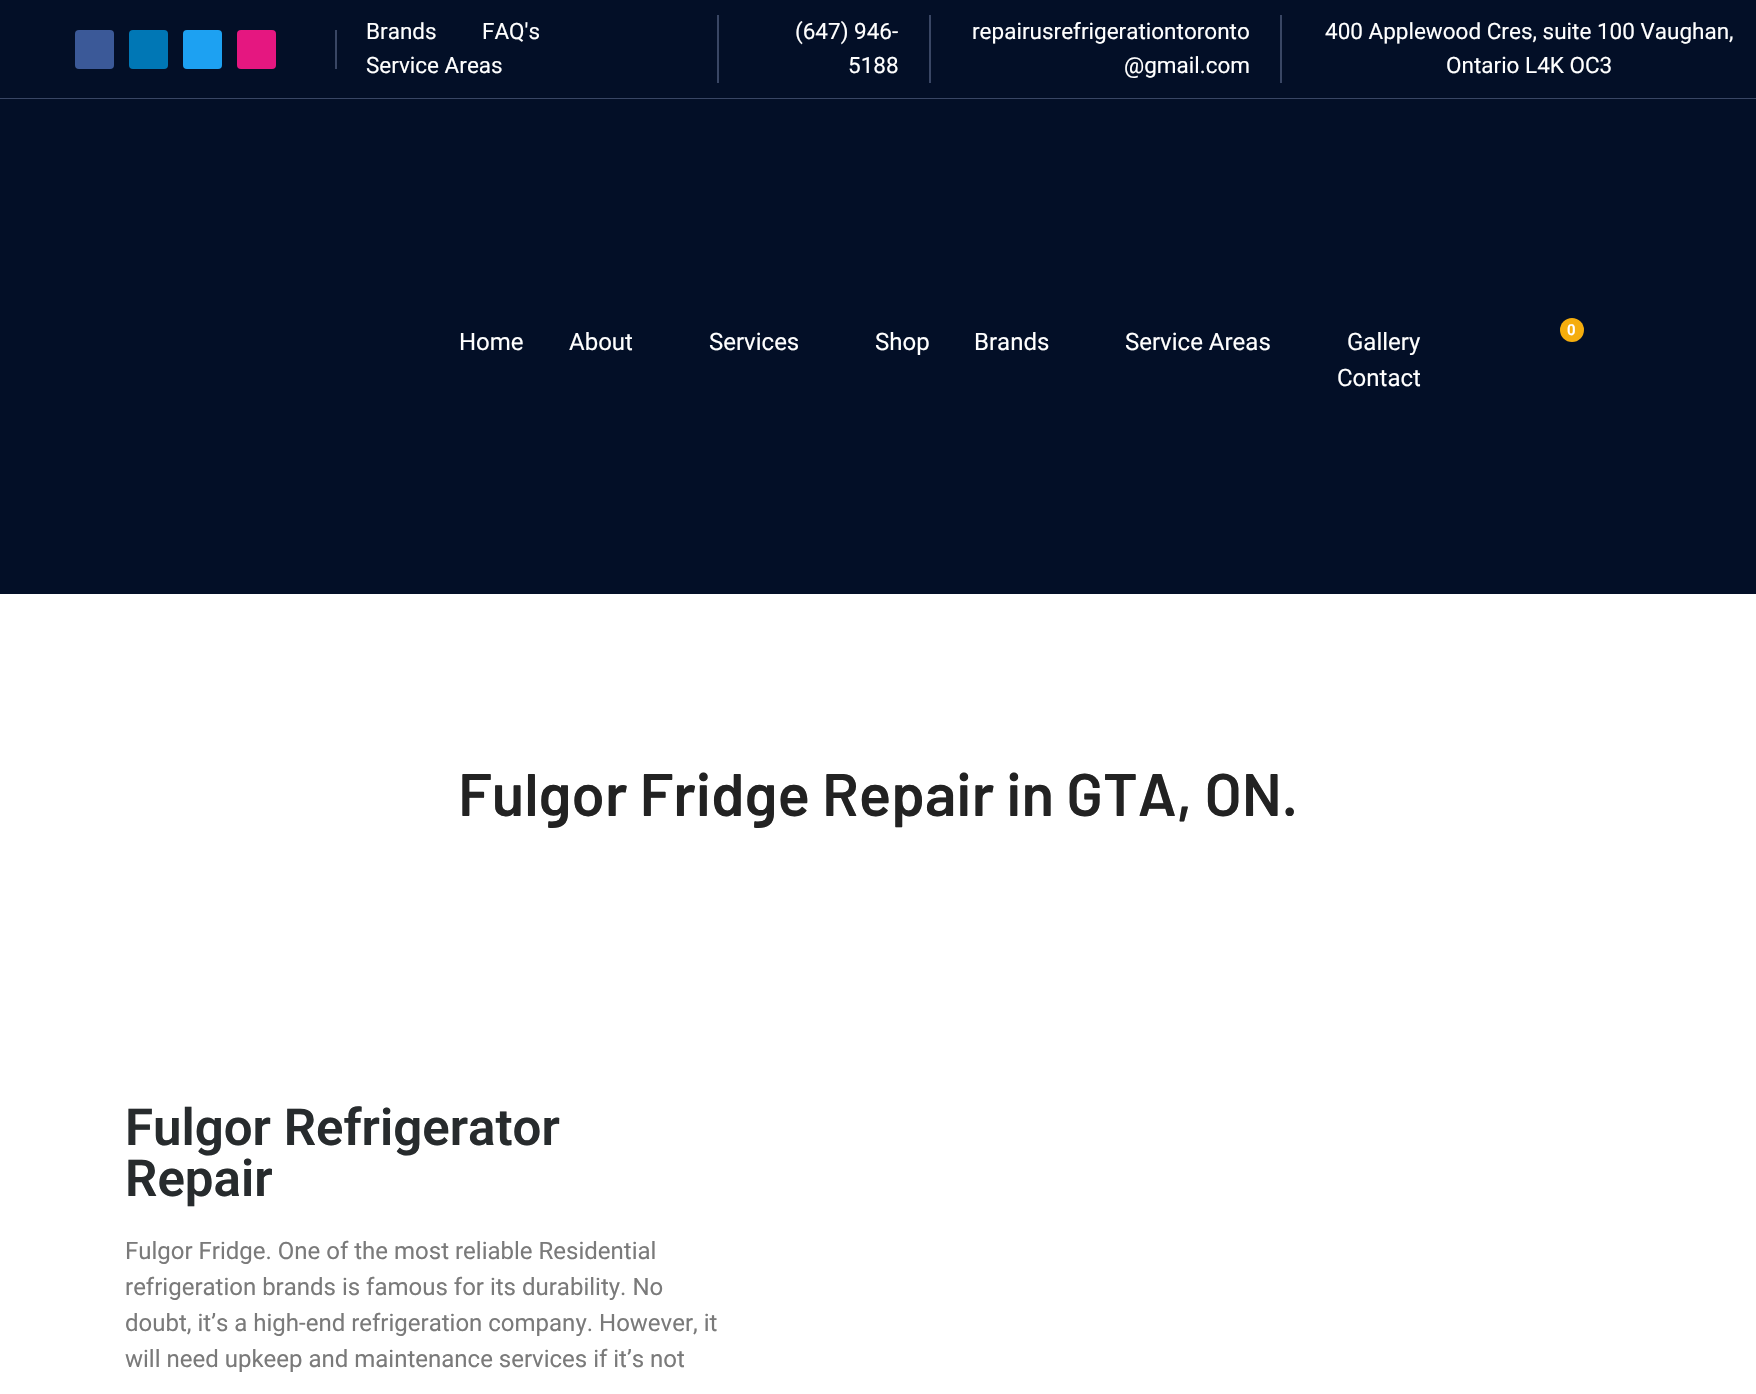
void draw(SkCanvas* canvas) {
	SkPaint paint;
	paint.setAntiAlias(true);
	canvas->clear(0xffffffff);
	paint.setColor(0xff030f27);
	canvas->drawRect(SkRect::MakeXYWH(0, 0, 1756, 98), paint);
	paint.setColor(0xff394664);
	canvas->drawRect(SkRect::MakeXYWH(0, 98, 1756, 1), paint);
	canvas->drawRect(SkRect::MakeXYWH(335, 30, 2, 39), paint);
	paint.setColor(0xff3b5998);
	canvas->drawRoundRect(SkRect::MakeXYWH(75, 30, 39, 39), 4, 4, paint);
	paint.setColor(0xff0077b5);
	canvas->drawRoundRect(SkRect::MakeXYWH(129, 30, 39, 39), 4, 4, paint);
	paint.setColor(0xff1da1f2);
	canvas->drawRoundRect(SkRect::MakeXYWH(183, 30, 39, 39), 4, 4, paint);
	paint.setColor(0xffe51780);
	canvas->drawRoundRect(SkRect::MakeXYWH(237, 30, 39, 39), 4, 4, paint);
	SkFont f1(fontMgr->matchFamilyStyle("Roboto", SkFontStyle::Normal()), 22.5);
	f1.setSubpixel(true);
	paint.setColor(0xffffffff);
	canvas->drawString("Brands", 366, 39, f1, paint);
	canvas->drawString("FAQ's", 482, 39, f1, paint);
	canvas->drawString("Service Areas", 366, 73, f1, paint);
	paint.setColor(0xff394664);
	canvas->drawRect(SkRect::MakeXYWH(717, 15, 2, 68), paint);
	paint.setColor(0xffffffff);
	canvas->drawString("(647) 946-", 795, 39, f1, paint);
	canvas->drawString("5188", 848, 73, f1, paint);
	paint.setColor(0xff394664);
	canvas->drawRect(SkRect::MakeXYWH(929, 15, 2, 68), paint);
	paint.setColor(0xffffffff);
	canvas->drawString("repairusrefrigerationtoronto", 972, 39, f1, paint);
	canvas->drawString("@gmail.com", 1124, 73, f1, paint);
	paint.setColor(0xff394664);
	canvas->drawRect(SkRect::MakeXYWH(1280, 15, 2, 68), paint);
	paint.setColor(0xffffffff);
	canvas->drawString("400 Applewood Cres, suite 100 Vaughan,", 1325, 39, f1, paint);
	canvas->drawString("Ontario L4K OC3", 1446, 73, f1, paint);
	paint.setColor(0xff030f27);
	canvas->drawRect(SkRect::MakeXYWH(0, 99, 1756, 495), paint);
	paint.setColor(0xfff5ad0d);
	canvas->drawCircle(1572, 330, 12, paint);
	SkFont f2(fontMgr->matchFamilyStyle("Roboto", SkFontStyle(600, SkFontStyle::kNormal_Width, SkFontStyle::kUpright_Slant)), 15);
	f2.setSubpixel(true);
	paint.setColor(0xffffffff);
	canvas->drawString("0", 1567, 335, f2, paint);
	SkFont f3(fontMgr->matchFamilyStyle("Roboto", SkFontStyle::Normal()), 24);
	f3.setSubpixel(true);
	canvas->drawString("Home", 459, 350, f3, paint);
	canvas->drawString("About", 569, 350, f3, paint);
	canvas->drawString("Services", 709, 350, f3, paint);
	canvas->drawString("Shop", 875, 350, f3, paint);
	canvas->drawString("Brands", 974, 350, f3, paint);
	canvas->drawString("Service Areas", 1125, 350, f3, paint);
	canvas->drawString("Gallery", 1347, 350, f3, paint);
	canvas->drawString("Contact", 1337, 386, f3, paint);
	SkFont f4(fontMgr->matchFamilyStyle("Barlow", SkFontStyle(600, SkFontStyle::kNormal_Width, SkFontStyle::kUpright_Slant)), 60);
	f4.setSubpixel(true);
	paint.setColor(0xff222222);
	canvas->drawString("Fulgor Fridge Repair in GTA, ON.", 458, 816, f4, paint);
	SkFont f5(fontMgr->matchFamilyStyle("Roboto", SkFontStyle(600, SkFontStyle::kNormal_Width, SkFontStyle::kUpright_Slant)), 51);
	f5.setSubpixel(true);
	paint.setColor(0xff272b2d);
	canvas->drawString("Fulgor Refrigerator", 125, 1145, f5, paint);
	canvas->drawString("Repair", 125, 1196, f5, paint);
	paint.setColor(0xff7a7a7a);
	canvas->drawString("Fulgor Fridge. One of the most reliable Residential", 125, 1259, f3, paint);
	canvas->drawString("refrigeration brands is famous for its durability. No", 125, 1295, f3, paint);
	canvas->drawString("doubt, it’s a high-end refrigeration company. However, it", 125, 1331, f3, paint);
	canvas->drawString("will need upkeep and maintenance services if it’s not", 125, 1367, f3, paint);
}
